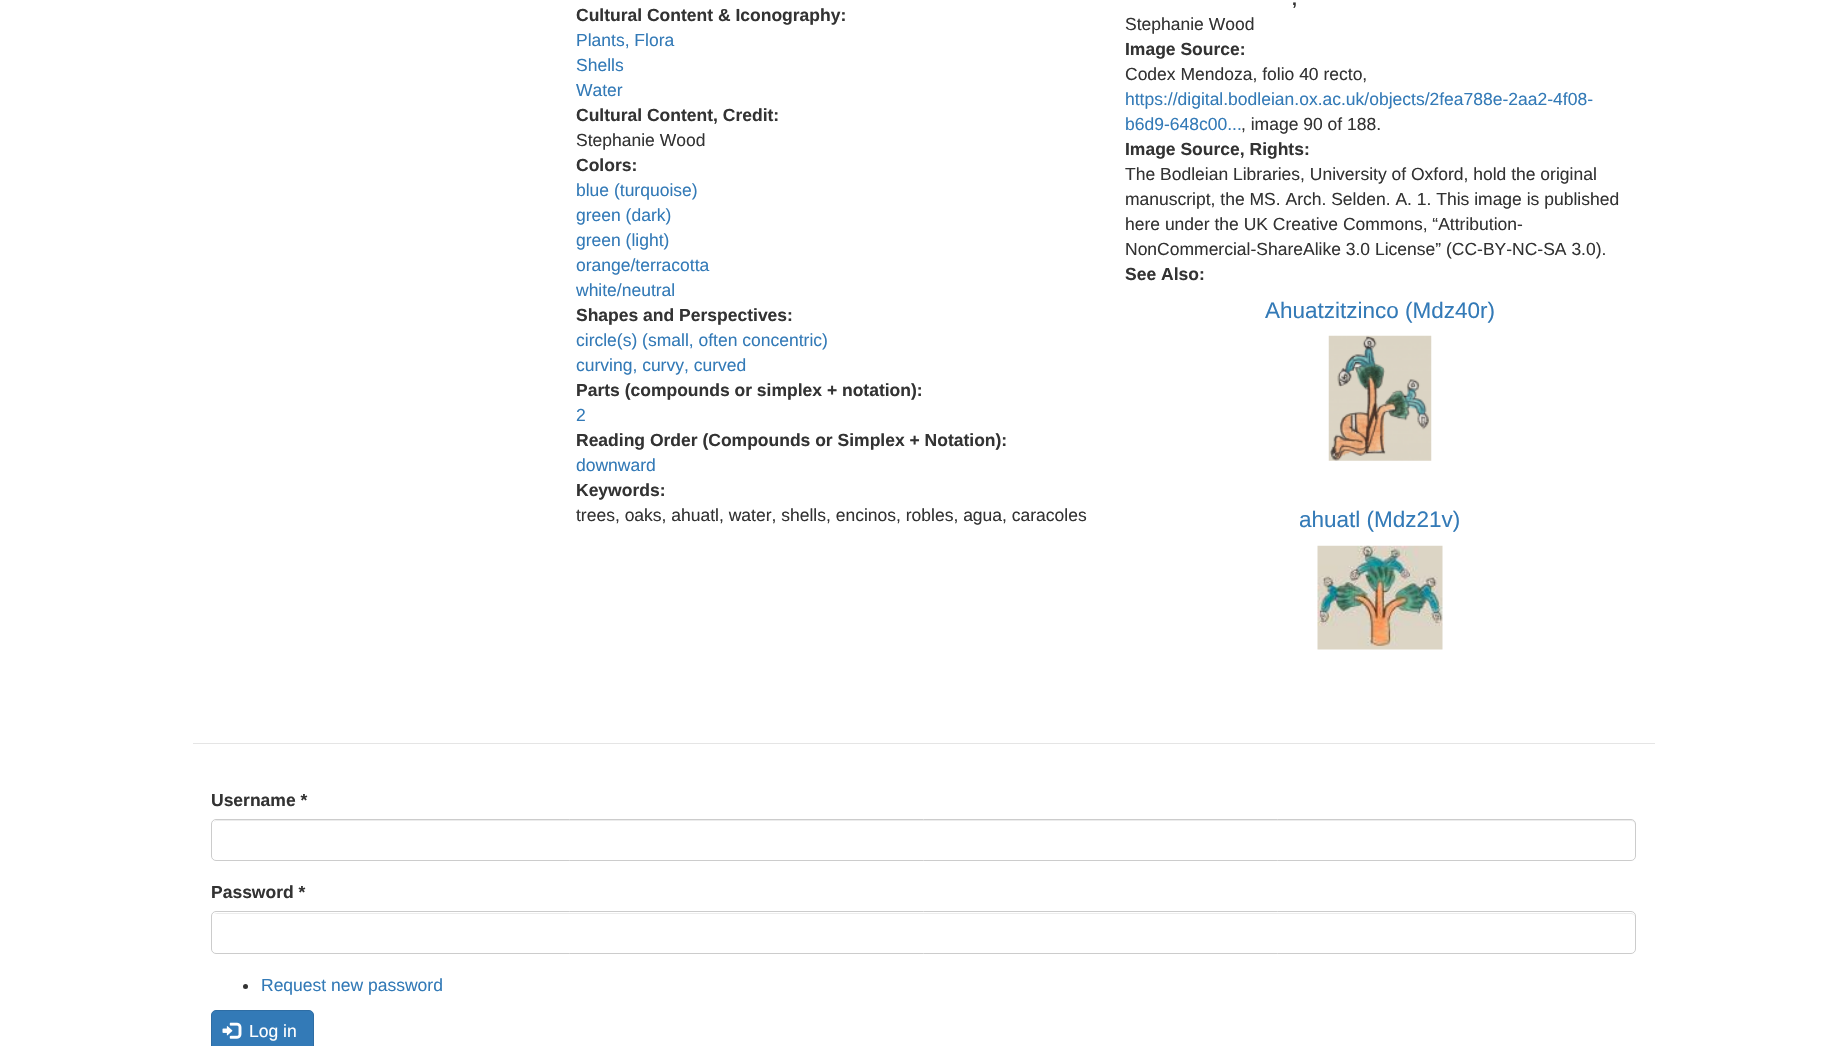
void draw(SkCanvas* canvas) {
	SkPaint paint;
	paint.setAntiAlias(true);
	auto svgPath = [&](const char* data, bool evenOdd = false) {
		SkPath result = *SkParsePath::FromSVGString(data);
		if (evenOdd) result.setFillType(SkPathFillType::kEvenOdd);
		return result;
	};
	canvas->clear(0xffffffff);
	SkFont f1(fontMgr->matchFamilyStyle("Liberation Sans", SkFontStyle::Bold()), 17.5);
	f1.setSubpixel(true);
	paint.setColor(0xff333333);
	canvas->drawString("Cultural Content & Iconography:", 576, 21, f1, paint);
	SkFont f2(fontMgr->matchFamilyStyle("Liberation Sans", SkFontStyle::Normal()), 17.5);
	f2.setSubpixel(true);
	paint.setColor(0xff337ab7);
	canvas->drawString("Plants, Flora", 576, 46, f2, paint);
	canvas->drawString("Shells", 576, 71, f2, paint);
	canvas->drawString("Water", 576, 96, f2, paint);
	paint.setColor(0xff333333);
	canvas->drawString("Cultural Content, Credit:", 576, 121, f1, paint);
	canvas->drawString("Stephanie Wood", 576, 146, f2, paint);
	canvas->drawString("Colors:", 576, 171, f1, paint);
	paint.setColor(0xff337ab7);
	canvas->drawString("blue (turquoise)", 576, 196, f2, paint);
	canvas->drawString("green (dark)", 576, 221, f2, paint);
	canvas->drawString("green (light)", 576, 246, f2, paint);
	canvas->drawString("orange/terracotta", 576, 271, f2, paint);
	canvas->drawString("white/neutral", 576, 296, f2, paint);
	paint.setColor(0xff333333);
	canvas->drawString("Shapes and Perspectives:", 576, 321, f1, paint);
	paint.setColor(0xff337ab7);
	canvas->drawString("circle(s) (small, often concentric)", 576, 346, f2, paint);
	canvas->drawString("curving, curvy, curved", 576, 371, f2, paint);
	paint.setColor(0xff333333);
	canvas->drawString("Parts (compounds or simplex + notation):", 576, 396, f1, paint);
	paint.setColor(0xff337ab7);
	canvas->drawString("2", 576, 421, f2, paint);
	paint.setColor(0xff333333);
	canvas->drawString("Reading Order (Compounds or Simplex + Notation):", 576, 446, f1, paint);
	paint.setColor(0xff337ab7);
	canvas->drawString("downward", 576, 471, f2, paint);
	paint.setColor(0xff333333);
	canvas->drawString("Keywords:", 576, 496, f1, paint);
	canvas->drawString("trees, oaks, ahuatl, water, shells, encinos, robles, agua, caracoles", 576, 521, f2, paint);
	canvas->drawString(",", 1292, 5, f1, paint);
	canvas->drawString("Stephanie Wood", 1125, 30, f2, paint);
	canvas->drawString("Image Source:", 1125, 55, f1, paint);
	canvas->drawString("Codex Mendoza, folio 40 recto,", 1125, 80, f2, paint);
	paint.setColor(0xff337ab7);
	canvas->drawString("https://digital.bodleian.ox.ac.uk/objects/2fea788e-2aa2-4f08-", 1125, 105, f2, paint);
	canvas->drawString("b6d9-648c00...", 1125, 130, f2, paint);
	paint.setColor(0xff333333);
	canvas->drawString(", image 90 of 188.", 1241, 130, f2, paint);
	canvas->drawString("Image Source, Rights:", 1125, 155, f1, paint);
	canvas->drawString("The Bodleian Libraries, University of Oxford, hold the original", 1125, 180, f2, paint);
	canvas->drawString("manuscript, the MS. Arch. Selden. A. 1. This image is published", 1125, 205, f2, paint);
	canvas->drawString("here under the UK Creative Commons, “Attribution-", 1125, 230, f2, paint);
	canvas->drawString("NonCommercial-ShareAlike 3.0 License” (CC-BY-NC-SA 3.0).", 1125, 255, f2, paint);
	canvas->drawString("See Also:", 1125, 280, f1, paint);
	SkFont f3(fontMgr->matchFamilyStyle("Liberation Sans", SkFontStyle::Normal()), 22.5);
	f3.setSubpixel(true);
	paint.setColor(0xff337ab7);
	canvas->drawString("Ahuatzitzinco (Mdz40r)", 1265, 318, f3, paint);
	canvas->drawImageRect(SkImages::DeferredFromEncodedData(SkData::MakeFromFileName("img1.png")), SkRect::MakeXYWH(1328, 335, 104, 126), SkSamplingOptions());
	canvas->drawString("ahuatl (Mdz21v)", 1299, 527, f3, paint);
	canvas->drawImageRect(SkImages::DeferredFromEncodedData(SkData::MakeFromFileName("img2.png")), SkRect::MakeXYWH(1317, 545, 126, 105), SkSamplingOptions());
	paint.setColor(0xffe5e5e5);
	canvas->drawRect(SkRect::MakeXYWH(193, 743, 1462, 1), paint);
	paint.setColor(0xff333333);
	canvas->drawString("Username *", 211, 806, f1, paint);
	paint.setColor(0xffececec);
	canvas->drawPath(svgPath("M216 821H1631C1633 821 1635 823 1635 825V824C1635 822 1633 820 1631 820H217C216 820 214 821 214 822Z"), paint);
	paint.setStroke(true);
	paint.setStrokeWidth(1);
	paint.setColor(0xffcccccc);
	canvas->drawRoundRect(SkRect::MakeXYWH(211.5, 819.5, 1424, 41), 4.5, 4.5, paint);
	paint.setStroke(false);
	paint.setColor(0xff333333);
	canvas->drawString("Password *", 211, 898, f1, paint);
	paint.setColor(0xffececec);
	canvas->drawPath(svgPath("M216 914H1631C1633 914 1635 915 1635 918V917C1635 915 1633 913 1631 913H217C216 913 215 914 214 914Z"), paint);
	paint.setStroke(true);
	paint.setColor(0xffcccccc);
	canvas->drawRoundRect(SkRect::MakeXYWH(211.5, 911.5, 1424, 42), 4.5, 4.5, paint);
	paint.setStroke(false);
	paint.setColor(0xff333333);
	canvas->drawCircle(245.5, 986.5, 2.5, paint);
	paint.setColor(0xff337ab7);
	canvas->drawString("Request new password", 261, 991, f2, paint);
	canvas->drawRoundRect(SkRect::MakeXYWH(211.5, 1010.5, 102, 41), 4.5, 4.5, paint);
	paint.setStroke(true);
	paint.setColor(0xff2e6da4);
	canvas->drawRoundRect(SkRect::MakeXYWH(211.5, 1010.5, 102, 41), 4.5, 4.5, paint);
	canvas->drawImageRect(SkImages::DeferredFromEncodedData(SkData::MakeFromFileName("img3.png")), SkRect::MakeXYWH(222, 1022, 20, 17), SkSamplingOptions());
	paint.setStroke(false);
	paint.setColor(0xffffffff);
	canvas->drawString("Log in", 249, 1037, f2, paint);
}
